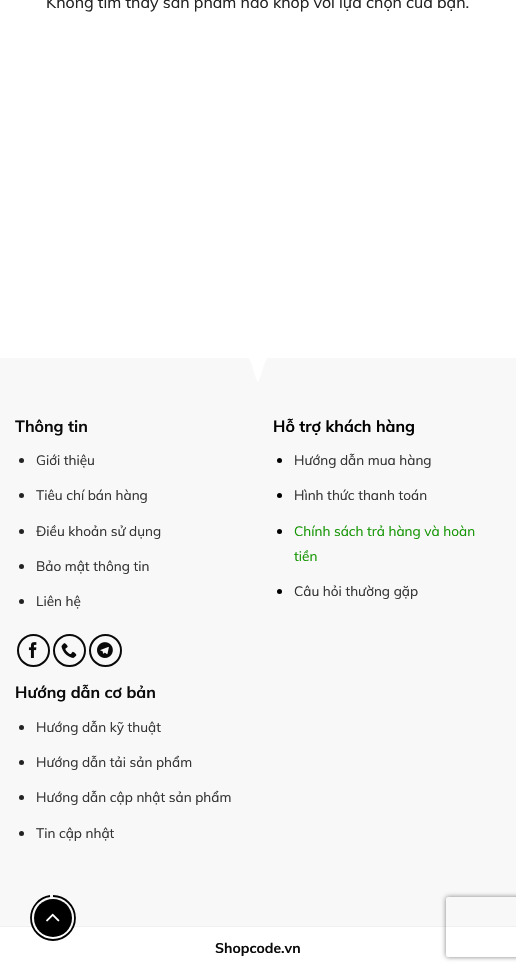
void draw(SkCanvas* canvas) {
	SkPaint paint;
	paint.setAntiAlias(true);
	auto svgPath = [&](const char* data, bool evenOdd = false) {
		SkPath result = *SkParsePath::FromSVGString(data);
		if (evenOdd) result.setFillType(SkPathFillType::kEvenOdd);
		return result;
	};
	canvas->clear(0xffffffff);
	SkFont f1(fontMgr->matchFamilyStyle("Muli", SkFontStyle::Normal()), 16);
	f1.setSubpixel(true);
	paint.setColor(0xff232323);
	canvas->drawString("Không tìm thấy sản phẩm nào khớp với lựa chọn của bạn.", 46, 8, f1, paint);
	paint.setColor(0xfff8f8f8);
	canvas->drawRect(SkRect::MakeXYWH(0, 358, 516, 568), paint);
	canvas->save();
	canvas->clipRect(SkRect::MakeXYWH(0, 353, 516, 150));
	paint.setColor(0xffffffff);
	canvas->drawPath(svgPath("M-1 352H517V358H268C265 358 260 382 258 382C256 382 251 358 248 358H-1Z"), paint);
	canvas->restore();
	SkFont f2(fontMgr->matchFamilyStyle("Muli", SkFontStyle::Bold()), 16);
	f2.setSubpixel(true);
	paint.setColor(0xff0a0a0a);
	canvas->drawString("Thông tin", 15, 432, f2, paint);
	paint.setColor(0xff232323);
	canvas->drawCircle(21.5, 460.5, 2.5, paint);
	SkFont f3(fontMgr->matchFamilyStyle("Muli", SkFontStyle::Normal()), 13.6);
	f3.setSubpixel(true);
	paint.setColor(0xff333333);
	canvas->drawString("Giới thiệu", 36, 465, f3, paint);
	paint.setColor(0xff232323);
	canvas->drawCircle(21.5, 495.5, 2.5, paint);
	paint.setColor(0xff333333);
	canvas->drawString("Tiêu chí bán hàng", 36, 500, f3, paint);
	paint.setColor(0xff232323);
	canvas->drawCircle(21.5, 531.5, 2.5, paint);
	paint.setColor(0xff333333);
	canvas->drawString("Điều khoản sử dụng", 36, 536, f3, paint);
	paint.setColor(0xff232323);
	canvas->drawCircle(21.5, 566.5, 2.5, paint);
	paint.setColor(0xff333333);
	canvas->drawString("Bảo mật thông tin", 36, 571, f3, paint);
	paint.setColor(0xff232323);
	canvas->drawCircle(21.5, 601.5, 2.5, paint);
	paint.setColor(0xff333333);
	canvas->drawString("Liên hệ", 36, 606, f3, paint);
	paint.setStroke(true);
	paint.setStrokeWidth(2);
	paint.setColor(0xff090909);
	canvas->drawCircle(33.5, 650.5, 15.5, paint);
	canvas->drawImageRect(SkImages::DeferredFromEncodedData(SkData::MakeFromFileName("img1.png")), SkRect::MakeXYWH(28, 642, 9, 16), SkSamplingOptions());
	canvas->drawCircle(69.5, 650.5, 15.5, paint);
	canvas->drawImageRect(SkImages::DeferredFromEncodedData(SkData::MakeFromFileName("img2.png")), SkRect::MakeXYWH(61, 643, 16, 15), SkSamplingOptions());
	canvas->drawCircle(105.5, 650.5, 15.5, paint);
	canvas->drawImageRect(SkImages::DeferredFromEncodedData(SkData::MakeFromFileName("img3.png")), SkRect::MakeXYWH(97, 642, 16, 16), SkSamplingOptions());
	paint.setStroke(false);
	paint.setColor(0xff000000);
	canvas->drawString("Hỗ trợ khách hàng", 273, 432, f2, paint);
	canvas->drawCircle(279.5, 460.5, 2.5, paint);
	paint.setColor(0xff333333);
	canvas->drawString("Hướng dẫn mua hàng", 294, 465, f3, paint);
	paint.setColor(0xff000000);
	canvas->drawCircle(279.5, 495.5, 2.5, paint);
	paint.setColor(0xff333333);
	canvas->drawString("Hình thức thanh toán", 294, 500, f3, paint);
	paint.setColor(0xff000000);
	canvas->drawCircle(279.5, 531.5, 2.5, paint);
	paint.setColor(0xff149503);
	canvas->drawString("Chính sách trả hàng và hoàn", 294, 536, f3, paint);
	canvas->drawString("tiền", 294, 561, f3, paint);
	paint.setColor(0xff000000);
	canvas->drawCircle(279.5, 591.5, 2.5, paint);
	paint.setColor(0xff333333);
	canvas->drawString("Câu hỏi thường gặp", 294, 596, f3, paint);
	paint.setColor(0xff0a0a0a);
	canvas->drawString("Hướng dẫn cơ bản", 15, 698, f2, paint);
	paint.setColor(0xff232323);
	canvas->drawCircle(21.5, 727.5, 2.5, paint);
	paint.setColor(0xff333333);
	canvas->drawString("Hướng dẫn kỹ thuật", 36, 732, f3, paint);
	paint.setColor(0xff232323);
	canvas->drawCircle(21.5, 762.5, 2.5, paint);
	paint.setColor(0xff333333);
	canvas->drawString("Hướng dẫn tải sản phẩm", 36, 767, f3, paint);
	paint.setColor(0xff232323);
	canvas->drawCircle(21.5, 797.5, 2.5, paint);
	paint.setColor(0xff333333);
	canvas->drawString("Hướng dẫn cập nhật sản phẩm", 36, 802, f3, paint);
	paint.setColor(0xff232323);
	canvas->drawCircle(21.5, 833.5, 2.5, paint);
	paint.setColor(0xff333333);
	canvas->drawString("Tin cập nhật", 36, 838, f3, paint);
	paint.setColor(0xfff0f0f0);
	canvas->drawRect(SkRect::MakeXYWH(0, 926, 516, 1), paint);
	SkFont f4(fontMgr->matchFamilyStyle("Muli", SkFontStyle::Bold()), 14);
	f4.setSubpixel(true);
	paint.setColor(0xff0a0a0a);
	canvas->drawString("Shopcode.vn", 215, 953, f4, paint);
	canvas->save();
	canvas->clipPath(svgPath("M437 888H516V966H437ZM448 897H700C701 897 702 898 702 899V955C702 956 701 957 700 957H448C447 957 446 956 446 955V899C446 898 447 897 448 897Z", true), true);
	paint.setColor(0xff808080);
	paint.setMaskFilter(SkMaskFilter::MakeBlur(kNormal_SkBlurStyle, 2.5));
	canvas->drawRoundRect(SkRect::MakeXYWH(446, 897, 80, 60), 2, 2, paint);
	paint.setMaskFilter(nullptr);
	canvas->restore();
	paint.setStroke(true);
	paint.setStrokeWidth(1.8);
	paint.setColor(0xff000000);
	canvas->drawPath(svgPath("M53 896C65 896 75 906 75 918C75 930 65 940 53 940C41 940 31 930 31 918C31 906.5 39.5 897.5 50 896"), paint);
	paint.setStroke(false);
	canvas->drawCircle(53, 918, 19, paint);
	canvas->drawImageRect(SkImages::DeferredFromEncodedData(SkData::MakeFromFileName("img4.png")), SkRect::MakeXYWH(46, 913, 14, 9), SkSamplingOptions());
}
